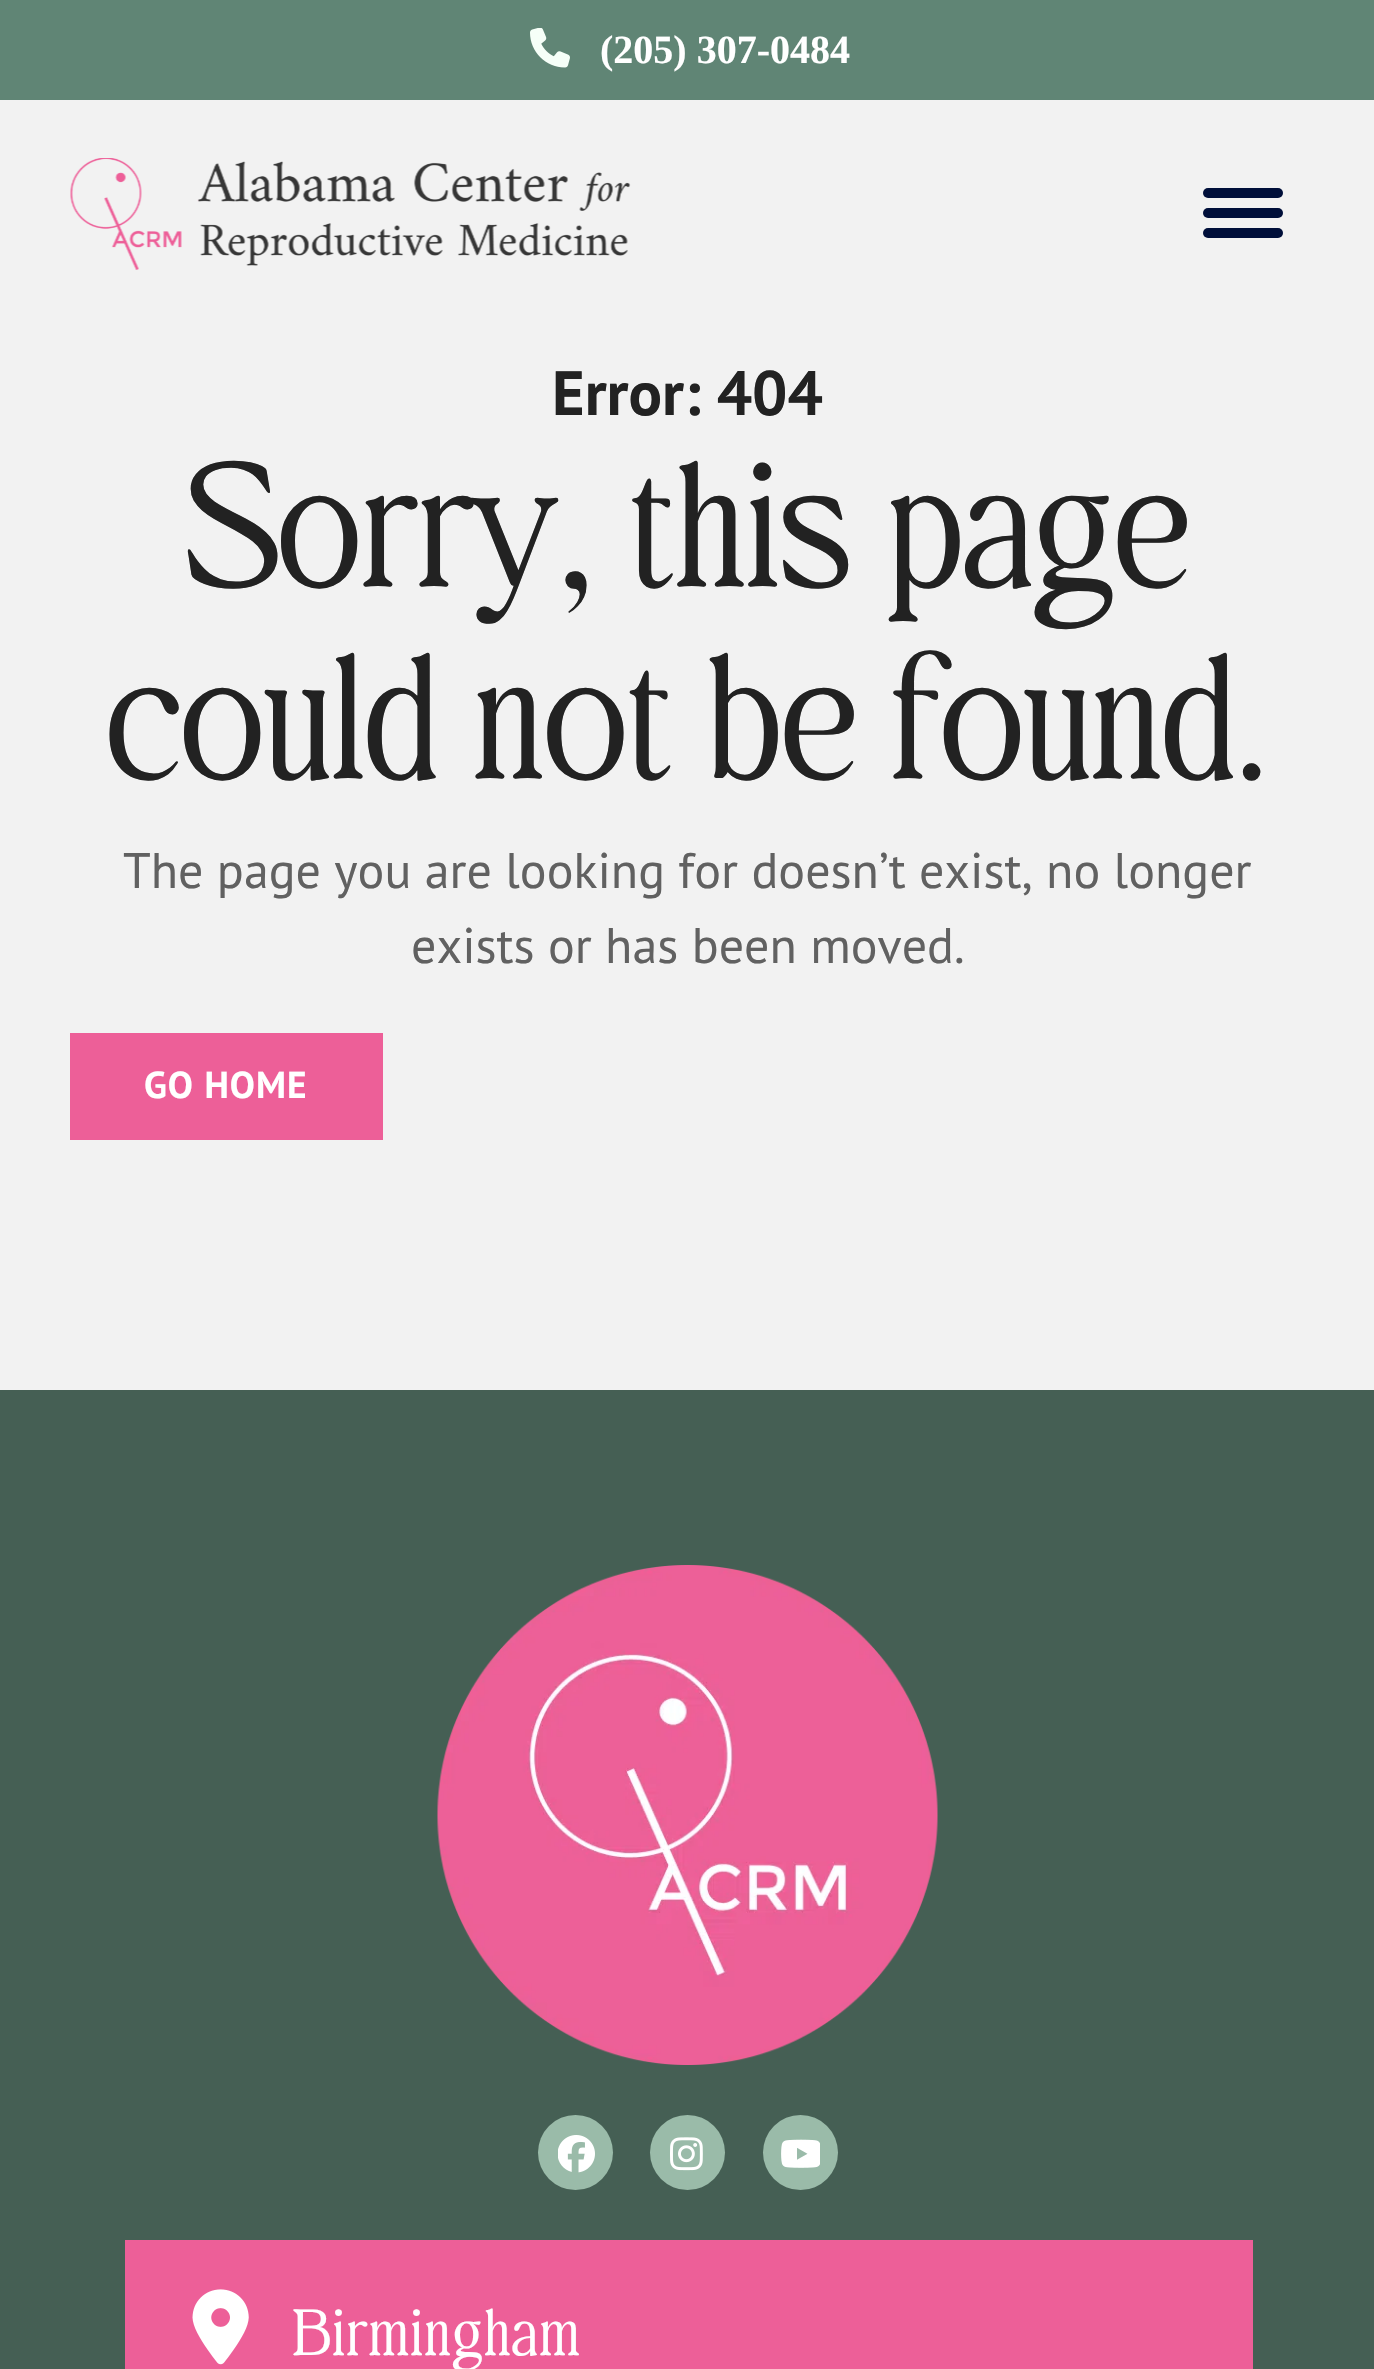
void draw(SkCanvas* canvas) {
	SkPaint paint;
	paint.setAntiAlias(true);
	auto spacedText = [&](const char* s, float x, float y, const SkFont& font, const SkPaint& ink, float letter, float word) {
		std::vector<SkGlyphID> glyphs(font.countText(s, strlen(s), SkTextEncoding::kUTF8));
		std::vector<float> xs(glyphs.size());
		font.textToGlyphs(s, strlen(s), SkTextEncoding::kUTF8, glyphs);
		font.getXPos(glyphs, xs, x);
		float extra = 0;
		for (size_t i = 0; i < glyphs.size(); i++) {
			xs[i] += extra;
			extra += letter + word * (glyphs[i] == font.unicharToGlyph(' '));
		}
		canvas->drawTextBlob(SkTextBlob::MakeFromPosHGlyphs(glyphs, xs, y, font), 0, 0, ink);
	};
	canvas->clear(0xfff2f2f2);
	paint.setColor(0xff608575);
	canvas->drawRect(SkRect::MakeXYWH(0, 0, 1374, 100), paint);
	canvas->drawImageRect(SkImages::DeferredFromEncodedData(SkData::MakeFromFileName("img1.png")), SkRect::MakeXYWH(530, 28, 40, 40), SkSamplingOptions());
	SkFont f1(fontMgr->matchFamilyStyle("Liberation Serif", SkFontStyle::Bold()), 40);
	f1.setSubpixel(true);
	paint.setColor(0xffffffff);
	canvas->drawString("(205) 307-0484", 600, 63, f1, paint);
	canvas->drawImageRect(SkImages::DeferredFromEncodedData(SkData::MakeFromFileName("img2.png")), SkRect::MakeXYWH(70, 158, 561, 112), SkSamplingOptions());
	paint.setColor(0xff000f3a);
	canvas->drawRoundRect(SkRect::MakeXYWH(1203, 188, 80, 10), 5, 5, paint);
	canvas->drawRoundRect(SkRect::MakeXYWH(1203, 208, 80, 10), 5, 5, paint);
	canvas->drawRoundRect(SkRect::MakeXYWH(1203, 228, 80, 10), 5, 5, paint);
	SkFont f2(fontMgr->matchFamilyStyle("PT Sans", SkFontStyle::Bold()), 62.5);
	f2.setSubpixel(true);
	paint.setColor(0xff222222);
	canvas->drawString("Error: 404", 552, 415, f2, paint);
	SkFont f3(fontMgr->matchFamilyStyle("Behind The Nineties", SkFontStyle::Normal()), 175);
	f3.setSubpixel(true);
	canvas->drawString("Sorry, this page", 187, 586, f3, paint);
	canvas->drawString("could not be found.", 106, 778, f3, paint);
	SkFont f4(fontMgr->matchFamilyStyle("PT Sans", SkFontStyle::Normal()), 50);
	f4.setSubpixel(true);
	paint.setColor(0xff616161);
	canvas->drawString("The page you are looking for doesn’t exist, no longer", 123, 888, f4, paint);
	canvas->drawString("exists or has been moved.", 411, 963, f4, paint);
	paint.setColor(0xffed5f98);
	canvas->drawRect(SkRect::MakeXYWH(70, 1033, 313, 107), paint);
	SkFont f5(fontMgr->matchFamilyStyle("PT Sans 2", SkFontStyle::Bold()), 37.5);
	f5.setSubpixel(true);
	paint.setColor(0xffffffff);
	spacedText("GO HOME", 144, 1098, f5, paint, 1, 0);
	paint.setColor(0xff455f54);
	canvas->drawRect(SkRect::MakeXYWH(0, 1390, 1374, 979), paint);
	canvas->drawImageRect(SkImages::DeferredFromEncodedData(SkData::MakeFromFileName("img3.png")), SkRect::MakeXYWH(437, 1565, 501, 500), SkSamplingOptions());
	paint.setColor(0xff9abba9);
	canvas->drawCircle(575.5, 2152.5, 37.5, paint);
	canvas->drawImageRect(SkImages::DeferredFromEncodedData(SkData::MakeFromFileName("img4.png")), SkRect::MakeXYWH(558, 2135, 37, 38), SkSamplingOptions());
	canvas->drawCircle(687.5, 2152.5, 37.5, paint);
	canvas->drawImageRect(SkImages::DeferredFromEncodedData(SkData::MakeFromFileName("img5.png")), SkRect::MakeXYWH(670, 2137, 33, 34), SkSamplingOptions());
	canvas->drawCircle(800.5, 2152.5, 37.5, paint);
	canvas->drawImageRect(SkImages::DeferredFromEncodedData(SkData::MakeFromFileName("img6.png")), SkRect::MakeXYWH(781, 2139, 39, 29), SkSamplingOptions());
	paint.setColor(0xffed5f98);
	canvas->drawRect(SkRect::MakeXYWH(125, 2240, 1128, 129), paint);
	canvas->drawImageRect(SkImages::DeferredFromEncodedData(SkData::MakeFromFileName("img7.png")), SkRect::MakeXYWH(192, 2289, 57, 76), SkSamplingOptions());
	SkFont f6(fontMgr->matchFamilyStyle("Behind The Nineties", SkFontStyle::Normal()), 65);
	f6.setSubpixel(true);
	paint.setColor(0xffffffff);
	spacedText("Birmingham", 293, 2355, f6, paint, 1.5, 0);
}
